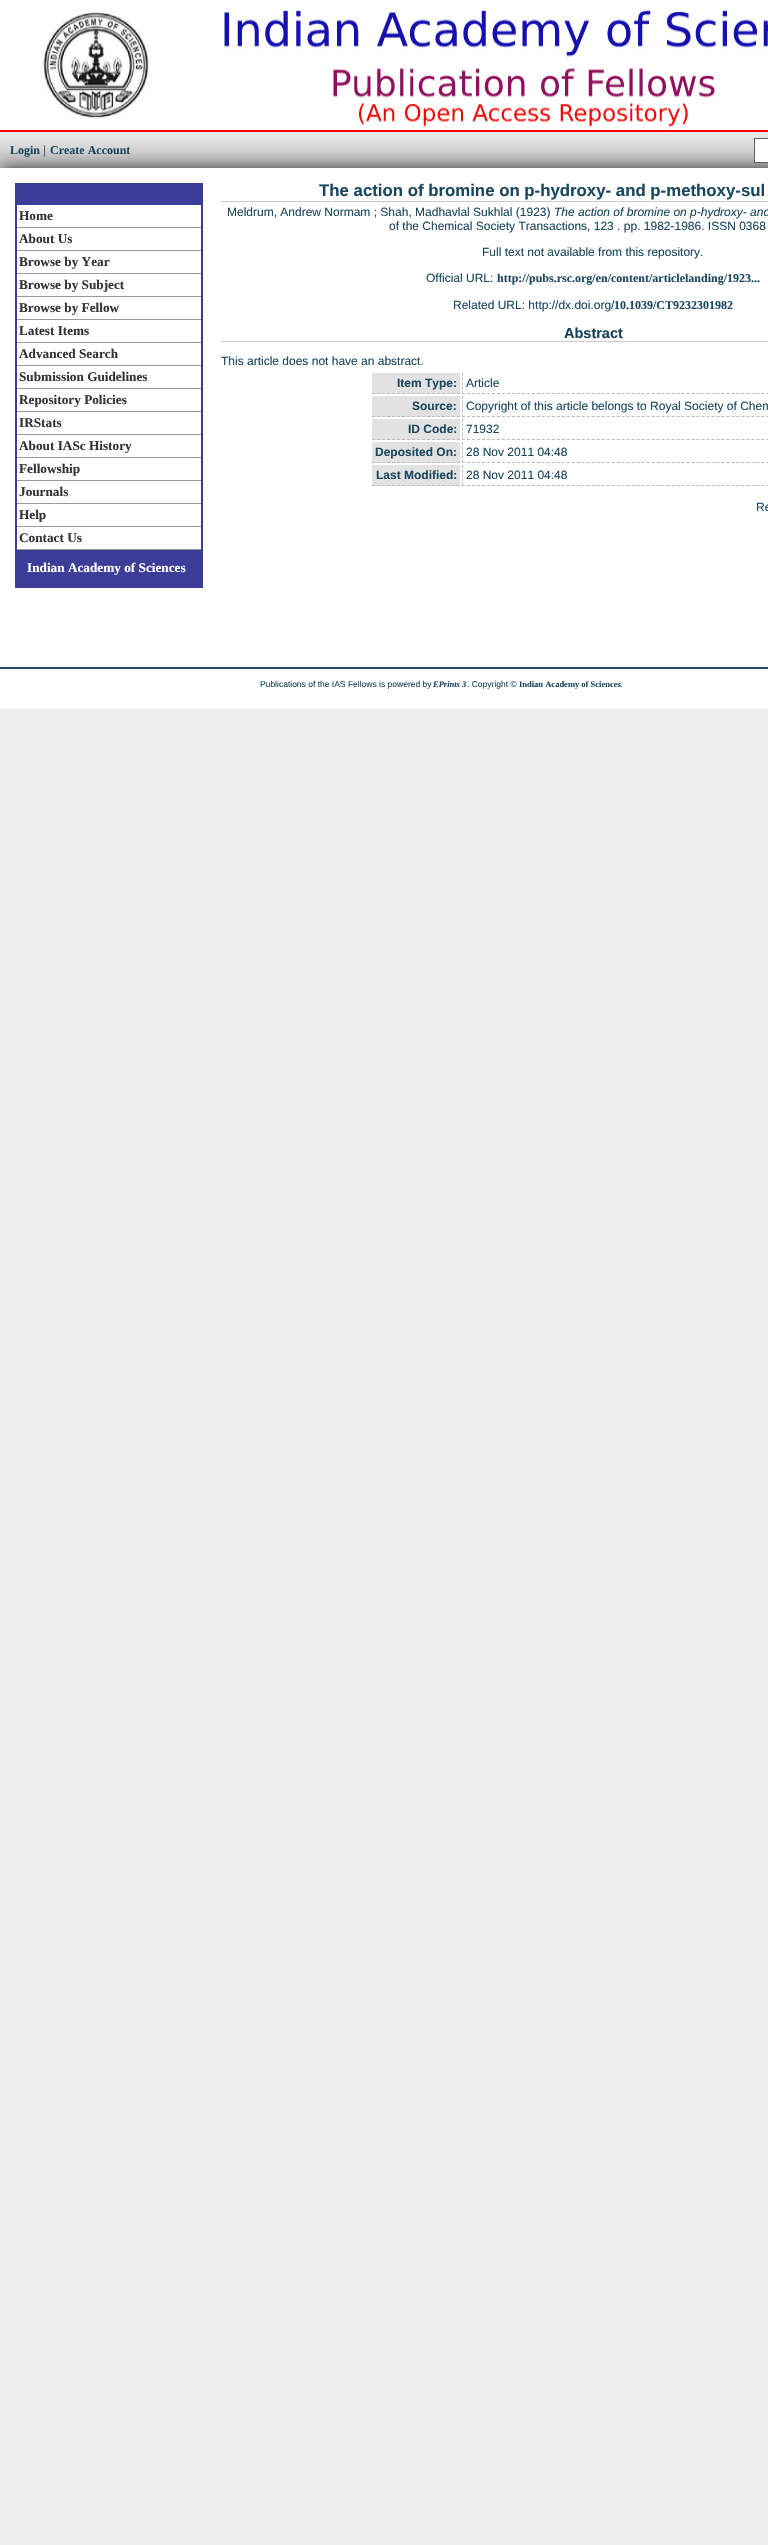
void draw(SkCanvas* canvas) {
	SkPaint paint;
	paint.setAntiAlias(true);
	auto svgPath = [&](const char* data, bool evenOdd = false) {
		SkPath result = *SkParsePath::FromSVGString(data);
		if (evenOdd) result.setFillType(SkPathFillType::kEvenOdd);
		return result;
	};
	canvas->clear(0xffeeeeee);
	canvas->drawImageRect(SkImages::DeferredFromEncodedData(SkData::MakeFromFileName("img1.png")), SkRect::MakeXYWH(0, 0, 768, 130), SkSamplingOptions());
	paint.setColor(0xffcccccc);
	canvas->drawRect(SkRect::MakeXYWH(0, 132, 768, 36), paint);
	canvas->drawImageRect(SkImages::DeferredFromEncodedData(SkData::MakeFromFileName("img2.png")), SkRect::MakeXYWH(0, 132, 768, 22), SkSamplingOptions());
	paint.setColor(0xffff0000);
	canvas->drawRect(SkRect::MakeXYWH(0, 130, 768, 2), paint);
	paint.setColor(0xcc000000);
	paint.setMaskFilter(SkMaskFilter::MakeBlur(kNormal_SkBlurStyle, 8));
	canvas->drawRect(SkRect::MakeXYWH(0, 168, 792, 500), paint);
	paint.setMaskFilter(nullptr);
	SkFont f1(fontMgr->matchFamilyStyle("Liberation Serif", SkFontStyle::Bold()), 12);
	f1.setSubpixel(true);
	paint.setColor(0xff1b485f);
	canvas->drawString("Login", 10, 154, f1, paint);
	SkFont f2(fontMgr->matchFamilyStyle("Liberation Sans", SkFontStyle::Normal()), 12);
	f2.setSubpixel(true);
	paint.setColor(0xff606060);
	canvas->drawString("|", 43, 154, f2, paint);
	paint.setColor(0xff1b485f);
	canvas->drawString("Create Account", 50, 154, f1, paint);
	paint.setColor(0xffffffff);
	canvas->drawRect(SkRect::MakeXYWH(754.5, 138.5, 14, 24), paint);
	paint.setStroke(true);
	paint.setStrokeWidth(1);
	paint.setColor(0xff606060);
	canvas->drawRect(SkRect::MakeXYWH(754.5, 138.5, 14, 24), paint);
	paint.setStroke(false);
	paint.setColor(0xffffffff);
	canvas->drawRect(SkRect::MakeXYWH(0, 168, 768, 499), paint);
	paint.setColor(0xff3b3d98);
	canvas->drawRect(SkRect::MakeXYWH(15, 183, 188, 405), paint);
	paint.setColor(0xffffffff);
	canvas->drawRect(SkRect::MakeXYWH(17, 205, 184, 22), paint);
	paint.setColor(0xff999999);
	canvas->drawRect(SkRect::MakeXYWH(17, 227, 184, 1), paint);
	SkFont f3(fontMgr->matchFamilyStyle("Liberation Serif", SkFontStyle::Bold()), 13.25);
	f3.setSubpixel(true);
	paint.setColor(0xff333333);
	canvas->drawString("Home", 19, 220, f3, paint);
	paint.setColor(0xffffffff);
	canvas->drawRect(SkRect::MakeXYWH(17, 228, 184, 22), paint);
	paint.setColor(0xff999999);
	canvas->drawRect(SkRect::MakeXYWH(17, 250, 184, 1), paint);
	paint.setColor(0xff333333);
	canvas->drawString("About Us", 19, 243, f3, paint);
	paint.setColor(0xffffffff);
	canvas->drawRect(SkRect::MakeXYWH(17, 251, 184, 22), paint);
	paint.setColor(0xff999999);
	canvas->drawRect(SkRect::MakeXYWH(17, 273, 184, 1), paint);
	paint.setColor(0xff333333);
	canvas->drawString("Browse by Year", 19, 266, f3, paint);
	paint.setColor(0xffffffff);
	canvas->drawRect(SkRect::MakeXYWH(17, 274, 184, 22), paint);
	paint.setColor(0xff999999);
	canvas->drawRect(SkRect::MakeXYWH(17, 296, 184, 1), paint);
	paint.setColor(0xff333333);
	canvas->drawString("Browse by Subject", 19, 289, f3, paint);
	paint.setColor(0xffffffff);
	canvas->drawRect(SkRect::MakeXYWH(17, 297, 184, 22), paint);
	paint.setColor(0xff999999);
	canvas->drawRect(SkRect::MakeXYWH(17, 319, 184, 1), paint);
	paint.setColor(0xff333333);
	canvas->drawString("Browse by Fellow", 19, 312, f3, paint);
	paint.setColor(0xffffffff);
	canvas->drawRect(SkRect::MakeXYWH(17, 320, 184, 22), paint);
	paint.setColor(0xff999999);
	canvas->drawRect(SkRect::MakeXYWH(17, 342, 184, 1), paint);
	paint.setColor(0xff333333);
	canvas->drawString("Latest Items", 19, 335, f3, paint);
	paint.setColor(0xffffffff);
	canvas->drawRect(SkRect::MakeXYWH(17, 343, 184, 22), paint);
	paint.setColor(0xff999999);
	canvas->drawRect(SkRect::MakeXYWH(17, 365, 184, 1), paint);
	paint.setColor(0xff333333);
	canvas->drawString("Advanced Search", 19, 358, f3, paint);
	paint.setColor(0xffffffff);
	canvas->drawRect(SkRect::MakeXYWH(17, 366, 184, 22), paint);
	paint.setColor(0xff999999);
	canvas->drawRect(SkRect::MakeXYWH(17, 388, 184, 1), paint);
	paint.setColor(0xff333333);
	canvas->drawString("Submission Guidelines", 19, 381, f3, paint);
	paint.setColor(0xffffffff);
	canvas->drawRect(SkRect::MakeXYWH(17, 389, 184, 22), paint);
	paint.setColor(0xff999999);
	canvas->drawRect(SkRect::MakeXYWH(17, 411, 184, 1), paint);
	paint.setColor(0xff333333);
	canvas->drawString("Repository Policies", 19, 404, f3, paint);
	paint.setColor(0xffffffff);
	canvas->drawRect(SkRect::MakeXYWH(17, 412, 184, 22), paint);
	paint.setColor(0xff999999);
	canvas->drawRect(SkRect::MakeXYWH(17, 434, 184, 1), paint);
	paint.setColor(0xff333333);
	canvas->drawString("IRStats", 19, 427, f3, paint);
	paint.setColor(0xffffffff);
	canvas->drawRect(SkRect::MakeXYWH(17, 435, 184, 22), paint);
	paint.setColor(0xff999999);
	canvas->drawRect(SkRect::MakeXYWH(17, 457, 184, 1), paint);
	paint.setColor(0xff333333);
	canvas->drawString("About IASc History", 19, 450, f3, paint);
	paint.setColor(0xffffffff);
	canvas->drawRect(SkRect::MakeXYWH(17, 458, 184, 22), paint);
	paint.setColor(0xff999999);
	canvas->drawRect(SkRect::MakeXYWH(17, 480, 184, 1), paint);
	paint.setColor(0xff333333);
	canvas->drawString("Fellowship", 19, 473, f3, paint);
	paint.setColor(0xffffffff);
	canvas->drawRect(SkRect::MakeXYWH(17, 481, 184, 22), paint);
	paint.setColor(0xff999999);
	canvas->drawRect(SkRect::MakeXYWH(17, 503, 184, 1), paint);
	paint.setColor(0xff333333);
	canvas->drawString("Journals", 19, 496, f3, paint);
	paint.setColor(0xffffffff);
	canvas->drawRect(SkRect::MakeXYWH(17, 504, 184, 22), paint);
	paint.setColor(0xff999999);
	canvas->drawRect(SkRect::MakeXYWH(17, 526, 184, 1), paint);
	paint.setColor(0xff333333);
	canvas->drawString("Help", 19, 519, f3, paint);
	paint.setColor(0xffffffff);
	canvas->drawRect(SkRect::MakeXYWH(17, 527, 184, 22), paint);
	paint.setColor(0xff999999);
	canvas->drawRect(SkRect::MakeXYWH(17, 549, 184, 1), paint);
	paint.setColor(0xff333333);
	canvas->drawString("Contact Us", 19, 542, f3, paint);
	paint.setColor(0xfffdfdff);
	canvas->drawString("Indian Academy of Sciences", 27, 572, f3, paint);
	paint.setColor(0xffcbcbcb);
	canvas->drawRect(SkRect::MakeXYWH(221, 201, 547, 1), paint);
	SkFont f4(fontMgr->matchFamilyStyle("Liberation Sans", SkFontStyle::Bold()), 16.8);
	f4.setSubpixel(true);
	paint.setColor(0xff1b485f);
	canvas->drawString("The action of bromine on p-hydroxy- and p-methoxy-sul", 319, 196, f4, paint);
	canvas->drawString("Meldrum, Andrew Normam ; Shah, Madhavlal Sukhlal (1923)", 227, 216, f2, paint);
	SkFont f5(fontMgr->matchFamilyStyle("Liberation Sans", SkFontStyle::Italic()), 12);
	f5.setSubpixel(true);
	canvas->drawString("The action of bromine on p-hydroxy- and", 554, 216, f5, paint);
	canvas->drawString("of the Chemical Society Transactions, 123 . pp. 1982-1986. ISSN 0368", 389, 230, f2, paint);
	canvas->drawString("Full text not available from this repository.", 482, 256, f2, paint);
	canvas->drawString("Official URL:", 426, 282, f2, paint);
	canvas->drawString("http://pubs.rsc.org/en/content/articlelanding/1923...", 497, 282, f1, paint);
	canvas->drawString("Related URL: http://dx.doi.org/", 453, 309, f2, paint);
	canvas->drawString("10.1039/CT9232301982", 614, 309, f1, paint);
	paint.setColor(0xffcbcbcb);
	canvas->drawRect(SkRect::MakeXYWH(221, 341, 547, 1), paint);
	SkFont f6(fontMgr->matchFamilyStyle("Liberation Sans", SkFontStyle::Bold()), 14.5);
	f6.setSubpixel(true);
	paint.setColor(0xff154257);
	canvas->drawString("Abstract", 564, 338, f6, paint);
	paint.setColor(0xff1b485f);
	canvas->drawString("This article does not have an abstract.", 221, 365, f2, paint);
	paint.setColor(0xffe2e2e2);
	canvas->drawRect(SkRect::MakeXYWH(372, 373, 88, 21), paint);
	paint.setStroke(true);
	paint.setColor(0xffbbbbbb);
	paint.setPathEffect(SkDashPathEffect::Make({{3, 2}}, 0));
	canvas->drawPath(svgPath("M372 393.5H460"), paint);
	paint.setPathEffect(nullptr);
	SkFont f7(fontMgr->matchFamilyStyle("Liberation Sans", SkFontStyle::Bold()), 12);
	f7.setSubpixel(true);
	paint.setStroke(false);
	paint.setColor(0xff1b485f);
	canvas->drawString("Item Type:", 397, 387, f7, paint);
	paint.setStroke(true);
	paint.setColor(0xffbbbbbb);
	paint.setPathEffect(SkDashPathEffect::Make({{3, 1.99f}}, 0));
	canvas->drawPath(svgPath("M462 393.5H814"), paint);
	paint.setPathEffect(nullptr);
	paint.setPathEffect(SkDashPathEffect::Make({{3, 1.5f}}, 0));
	canvas->drawPath(svgPath("M462.5 373V394"), paint);
	paint.setPathEffect(nullptr);
	paint.setStroke(false);
	paint.setColor(0xff1b485f);
	canvas->drawString("Article", 466, 387, f2, paint);
	paint.setColor(0xffe2e2e2);
	canvas->drawRect(SkRect::MakeXYWH(372, 396, 88, 21), paint);
	paint.setStroke(true);
	paint.setColor(0xffbbbbbb);
	paint.setPathEffect(SkDashPathEffect::Make({{3, 2}}, 0));
	canvas->drawPath(svgPath("M372 416.5H460"), paint);
	paint.setPathEffect(nullptr);
	paint.setStroke(false);
	paint.setColor(0xff1b485f);
	canvas->drawString("Source:", 412, 410, f7, paint);
	paint.setStroke(true);
	paint.setColor(0xffbbbbbb);
	paint.setPathEffect(SkDashPathEffect::Make({{3, 1.99f}}, 0));
	canvas->drawPath(svgPath("M462 416.5H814"), paint);
	paint.setPathEffect(nullptr);
	paint.setPathEffect(SkDashPathEffect::Make({{3, 1.5f}}, 0));
	canvas->drawPath(svgPath("M462.5 396V417"), paint);
	paint.setPathEffect(nullptr);
	paint.setStroke(false);
	paint.setColor(0xff1b485f);
	canvas->drawString("Copyright of this article belongs to Royal Society of Chem", 466, 410, f2, paint);
	paint.setColor(0xffe2e2e2);
	canvas->drawRect(SkRect::MakeXYWH(372, 419, 88, 21), paint);
	paint.setStroke(true);
	paint.setColor(0xffbbbbbb);
	paint.setPathEffect(SkDashPathEffect::Make({{3, 2}}, 0));
	canvas->drawPath(svgPath("M372 439.5H460"), paint);
	paint.setPathEffect(nullptr);
	paint.setStroke(false);
	paint.setColor(0xff1b485f);
	canvas->drawString("ID Code:", 408, 433, f7, paint);
	paint.setStroke(true);
	paint.setColor(0xffbbbbbb);
	paint.setPathEffect(SkDashPathEffect::Make({{3, 1.99f}}, 0));
	canvas->drawPath(svgPath("M462 439.5H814"), paint);
	paint.setPathEffect(nullptr);
	paint.setPathEffect(SkDashPathEffect::Make({{3, 1.5f}}, 0));
	canvas->drawPath(svgPath("M462.5 419V440"), paint);
	paint.setPathEffect(nullptr);
	paint.setStroke(false);
	paint.setColor(0xff1b485f);
	canvas->drawString("71932", 466, 433, f2, paint);
	paint.setColor(0xffe2e2e2);
	canvas->drawRect(SkRect::MakeXYWH(372, 442, 88, 21), paint);
	paint.setStroke(true);
	paint.setColor(0xffbbbbbb);
	paint.setPathEffect(SkDashPathEffect::Make({{3, 2}}, 0));
	canvas->drawPath(svgPath("M372 462.5H460"), paint);
	paint.setPathEffect(nullptr);
	paint.setStroke(false);
	paint.setColor(0xff1b485f);
	canvas->drawString("Deposited On:", 375, 456, f7, paint);
	paint.setStroke(true);
	paint.setColor(0xffbbbbbb);
	paint.setPathEffect(SkDashPathEffect::Make({{3, 1.99f}}, 0));
	canvas->drawPath(svgPath("M462 462.5H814"), paint);
	paint.setPathEffect(nullptr);
	paint.setPathEffect(SkDashPathEffect::Make({{3, 1.5f}}, 0));
	canvas->drawPath(svgPath("M462.5 442V463"), paint);
	paint.setPathEffect(nullptr);
	paint.setStroke(false);
	paint.setColor(0xff1b485f);
	canvas->drawString("28 Nov 2011 04:48", 466, 456, f2, paint);
	paint.setColor(0xffe2e2e2);
	canvas->drawRect(SkRect::MakeXYWH(372, 465, 88, 21), paint);
	paint.setStroke(true);
	paint.setColor(0xffbbbbbb);
	paint.setPathEffect(SkDashPathEffect::Make({{3, 2}}, 0));
	canvas->drawPath(svgPath("M372 485.5H460"), paint);
	paint.setPathEffect(nullptr);
	paint.setStroke(false);
	paint.setColor(0xff1b485f);
	canvas->drawString("Last Modified:", 376, 479, f7, paint);
	paint.setStroke(true);
	paint.setColor(0xffbbbbbb);
	paint.setPathEffect(SkDashPathEffect::Make({{3, 1.99f}}, 0));
	canvas->drawPath(svgPath("M462 485.5H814"), paint);
	paint.setPathEffect(nullptr);
	paint.setPathEffect(SkDashPathEffect::Make({{3, 1.5f}}, 0));
	canvas->drawPath(svgPath("M462.5 465V486"), paint);
	paint.setPathEffect(nullptr);
	paint.setStroke(false);
	paint.setColor(0xff1b485f);
	canvas->drawString("28 Nov 2011 04:48", 466, 479, f2, paint);
	canvas->drawString("Re", 756, 511, f2, paint);
	paint.setColor(0xffffffff);
	canvas->drawRect(SkRect::MakeXYWH(0, 669, 768, 40), paint);
	paint.setColor(0xff204f76);
	canvas->drawRect(SkRect::MakeXYWH(0, 667, 768, 2), paint);
	SkFont f8(fontMgr->matchFamilyStyle("Liberation Sans", SkFontStyle::Normal()), 8.5);
	f8.setSubpixel(true);
	paint.setColor(0xff1b485f);
	canvas->drawString("Publications of the IAS Fellows is powered by", 260, 687, f8, paint);
	SkFont f9(fontMgr->matchFamilyStyle("Liberation Serif", SkFontStyle::BoldItalic()), 8.5);
	f9.setSubpixel(true);
	canvas->drawString("EPrints 3", 433, 687, f9, paint);
	canvas->drawString(". Copyright ©", 467, 687, f8, paint);
	SkFont f10(fontMgr->matchFamilyStyle("Liberation Serif", SkFontStyle::Bold()), 8.5);
	f10.setSubpixel(true);
	canvas->drawString("Indian Academy of Sciences", 519, 687, f10, paint);
	canvas->drawString(".", 620, 687, f8, paint);
}
